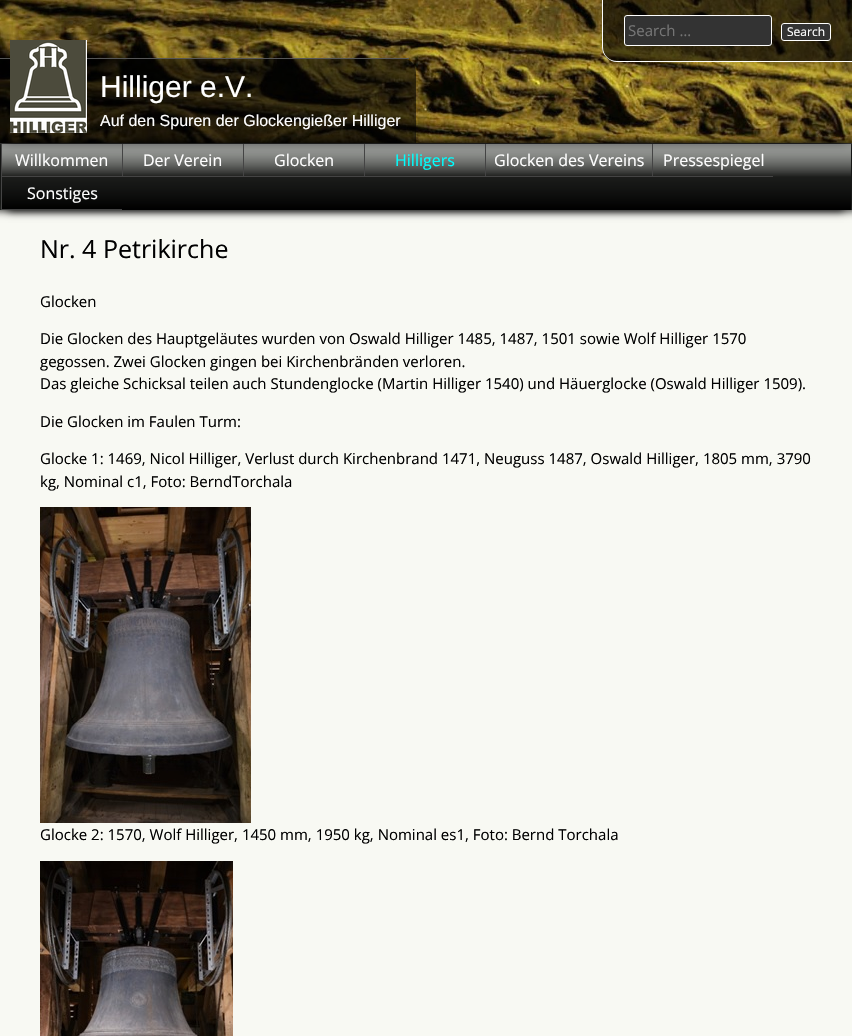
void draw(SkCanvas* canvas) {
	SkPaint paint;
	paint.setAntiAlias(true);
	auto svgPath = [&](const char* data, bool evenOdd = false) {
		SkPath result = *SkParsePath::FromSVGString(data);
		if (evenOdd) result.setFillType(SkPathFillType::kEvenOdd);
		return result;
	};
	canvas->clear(0xff7a8077);
	paint.setColor(0xcc000000);
	paint.setMaskFilter(SkMaskFilter::MakeBlur(kNormal_SkBlurStyle, 4));
	canvas->drawRect(SkRect::MakeXYWH(-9, 209, 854, 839), paint);
	paint.setMaskFilter(nullptr);
	paint.setMaskFilter(SkMaskFilter::MakeBlur(kNormal_SkBlurStyle, 4));
	canvas->drawRect(SkRect::MakeXYWH(7, 209, 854, 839), paint);
	paint.setMaskFilter(nullptr);
	{
		const SkColor colors[] = {0xcc000000, 0x00000000};
		const float stops[] = {0, 1};
		const SkPoint ends[] = {{426, 0}, {426, 210}};
		paint.setShader(SkGradientShader::MakeLinear(ends, colors, stops, 2, SkTileMode::kClamp));
		paint.setAlpha(255);
	}
	canvas->drawRect(SkRect::MakeXYWH(0, 144, 852, 60), paint);
	paint.setShader(nullptr);
	paint.setColor(0xcc000000);
	paint.setMaskFilter(SkMaskFilter::MakeBlur(kNormal_SkBlurStyle, 4));
	canvas->drawRect(SkRect::MakeXYWH(-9, -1, 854, 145), paint);
	paint.setMaskFilter(nullptr);
	paint.setMaskFilter(SkMaskFilter::MakeBlur(kNormal_SkBlurStyle, 4));
	canvas->drawRect(SkRect::MakeXYWH(7, -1, 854, 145), paint);
	paint.setMaskFilter(nullptr);
	canvas->drawImageRect(SkImages::DeferredFromEncodedData(SkData::MakeFromFileName("img1.png")), SkRect::MakeXYWH(0, 0, 852, 143), SkSamplingOptions());
	paint.setColor(0x99000000);
	canvas->drawPath(svgPath("M602 0H852V62H617C608.5 62 602 55.5 602 47Z"), paint);
	paint.setColor(0xffffffff);
	canvas->drawPath(svgPath("M602 0H852V62H617C609 62 602 55 602 47ZM603 0H852V61H617C609 61 603 55 603 47Z", true), paint);
	paint.setColor(0xff333333);
	canvas->drawRoundRect(SkRect::MakeXYWH(624.5, 15.5, 147, 30), 2.5, 2.5, paint);
	paint.setStroke(true);
	paint.setStrokeWidth(1);
	paint.setColor(0xffffffff);
	canvas->drawRoundRect(SkRect::MakeXYWH(624.5, 15.5, 147, 30), 2.5, 2.5, paint);
	SkFont f1(fontMgr->matchFamilyStyle("Open Sans", SkFontStyle::Normal()), 15);
	f1.setSubpixel(true);
	paint.setStroke(false);
	paint.setColor(0xff757575);
	canvas->drawString("Search …", 628, 36, f1, paint);
	paint.setColor(0xff333333);
	canvas->drawRoundRect(SkRect::MakeXYWH(781.5, 23.5, 49, 17), 2.5, 2.5, paint);
	paint.setStroke(true);
	paint.setColor(0xffffffff);
	canvas->drawRoundRect(SkRect::MakeXYWH(781.5, 23.5, 49, 17), 2.5, 2.5, paint);
	SkFont f2(fontMgr->matchFamilyStyle("Open Sans", SkFontStyle::Normal()), 12);
	f2.setSubpixel(true);
	paint.setStroke(false);
	canvas->drawString("Search", 787, 36, f2, paint);
	paint.setColor(0xff555555);
	canvas->drawRect(SkRect::MakeXYWH(0, 143, 852, 1), paint);
	paint.setColor(0xfff8f9f3);
	canvas->drawRect(SkRect::MakeXYWH(0, 210, 852, 826), paint);
	canvas->save();
	canvas->clipPath(svgPath("M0 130H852V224H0ZM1 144H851V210H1Z", true), true);
	paint.setColor(0xcc000000);
	paint.setMaskFilter(SkMaskFilter::MakeBlur(kNormal_SkBlurStyle, 4));
	canvas->drawRect(SkRect::MakeXYWH(-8, 143, 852, 68), paint);
	paint.setMaskFilter(nullptr);
	paint.setMaskFilter(SkMaskFilter::MakeBlur(kNormal_SkBlurStyle, 4));
	canvas->drawRect(SkRect::MakeXYWH(8, 143, 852, 68), paint);
	paint.setMaskFilter(nullptr);
	canvas->restore();
	paint.setColor(0x99000000);
	canvas->drawPath(svgPath("M0 58H401C409.5 58 416 64.5 416 73V143H0Z"), paint);
	paint.setColor(0xff555555);
	canvas->drawRect(SkRect::MakeXYWH(0, 58, 409, 1), paint);
	canvas->drawImageRect(SkImages::DeferredFromEncodedData(SkData::MakeFromFileName("img2.png")), SkRect::MakeXYWH(10, 40, 77, 93), SkSamplingOptions());
	SkFont f3(fontMgr->matchFamilyStyle("Liberation Sans", SkFontStyle::Normal()), 30);
	f3.setSubpixel(true);
	paint.setColor(0xffffffff);
	canvas->drawString("Hilliger e.V.", 100, 97, f3, paint);
	SkFont f4(fontMgr->matchFamilyStyle("Liberation Sans", SkFontStyle::Normal()), 16);
	f4.setSubpixel(true);
	canvas->drawString("Auf den Spuren der Glockengießer Hilliger", 100, 126, f4, paint);
	{
		const SkColor colors[] = {0x66ffffff, 0xbf000000, 0xff000000};
		const float stops[] = {0, 0.5, 1};
		const SkPoint ends[] = {{426, 144}, {426, 210}};
		paint.setShader(SkGradientShader::MakeLinear(ends, colors, stops, 3, SkTileMode::kClamp));
		paint.setAlpha(255);
	}
	canvas->drawRect(SkRect::MakeXYWH(2, 144, 849, 66), paint);
	paint.setShader(nullptr);
	paint.setColor(0xff444444);
	canvas->drawRect(SkRect::MakeXYWH(1, 176, 772, 1), paint);
	canvas->drawRect(SkRect::MakeXYWH(1, 144, 1, 33), paint);
	SkFont f5(fontMgr->matchFamilyStyle("Open Sans", SkFontStyle::Normal()), 16);
	f5.setSubpixel(true);
	paint.setColor(0xffffffff);
	canvas->drawString("Willkommen", 15, 166, f5, paint);
	paint.setColor(0xff444444);
	canvas->drawRect(SkRect::MakeXYWH(122, 144, 1, 33), paint);
	paint.setColor(0xffffffff);
	canvas->drawString("Der Verein", 143, 166, f5, paint);
	paint.setColor(0xff444444);
	canvas->drawRect(SkRect::MakeXYWH(243, 144, 1, 33), paint);
	paint.setColor(0xffffffff);
	canvas->drawString("Glocken", 274, 166, f5, paint);
	paint.setColor(0xff444444);
	canvas->drawRect(SkRect::MakeXYWH(364, 144, 1, 33), paint);
	paint.setColor(0xff00ffff);
	canvas->drawString("Hilligers", 395, 166, f5, paint);
	paint.setColor(0xff444444);
	canvas->drawRect(SkRect::MakeXYWH(485, 144, 1, 33), paint);
	paint.setColor(0xffffffff);
	canvas->drawString("Glocken des Vereins", 494, 166, f5, paint);
	paint.setColor(0xff444444);
	canvas->drawRect(SkRect::MakeXYWH(652, 144, 1, 33), paint);
	paint.setColor(0xffffffff);
	canvas->drawString("Pressespiegel", 663, 166, f5, paint);
	paint.setColor(0xff444444);
	canvas->drawRect(SkRect::MakeXYWH(1, 209, 121, 1), paint);
	canvas->drawRect(SkRect::MakeXYWH(1, 177, 1, 33), paint);
	paint.setColor(0xffffffff);
	canvas->drawString("Sonstiges", 27, 199, f5, paint);
	SkFont f6(fontMgr->matchFamilyStyle("Open Sans", SkFontStyle::Normal()), 25);
	f6.setSubpixel(true);
	paint.setColor(0xff000000);
	canvas->drawString("Nr. 4 Petrikirche", 40, 258, f6, paint);
	canvas->drawString("Glocken", 40, 307, f1, paint);
	canvas->drawString("Die Glocken des Hauptgeläutes wurden von Oswald Hilliger 1485, 1487, 1501 sowie Wolf Hilliger 1570", 40, 344, f1, paint);
	canvas->drawString("gegossen. Zwei Glocken gingen bei Kirchenbränden verloren.", 40, 367, f1, paint);
	canvas->drawString("Das gleiche Schicksal teilen auch Stundenglocke (Martin Hilliger 1540) und Häuerglocke (Oswald Hilliger 1509).", 40, 389, f1, paint);
	canvas->drawString("Die Glocken im Faulen Turm:", 40, 427, f1, paint);
	canvas->drawString("Glocke 1: 1469, Nicol Hilliger, Verlust durch Kirchenbrand 1471, Neuguss 1487, Oswald Hilliger, 1805 mm, 3790", 40, 464, f1, paint);
	canvas->drawString("kg, Nominal c1, Foto: BerndTorchala", 40, 487, f1, paint);
	canvas->drawImageRect(SkImages::DeferredFromEncodedData(SkData::MakeFromFileName("img3.png")), SkRect::MakeXYWH(40, 507, 211, 316), SkSamplingOptions());
	canvas->drawString("Glocke 2: 1570, Wolf Hilliger, 1450 mm, 1950 kg, Nominal es1, Foto: Bernd Torchala", 40, 840, f1, paint);
	canvas->drawImageRect(SkImages::DeferredFromEncodedData(SkData::MakeFromFileName("img4.png")), SkRect::MakeXYWH(40, 861, 193, 175), SkSamplingOptions());
}
